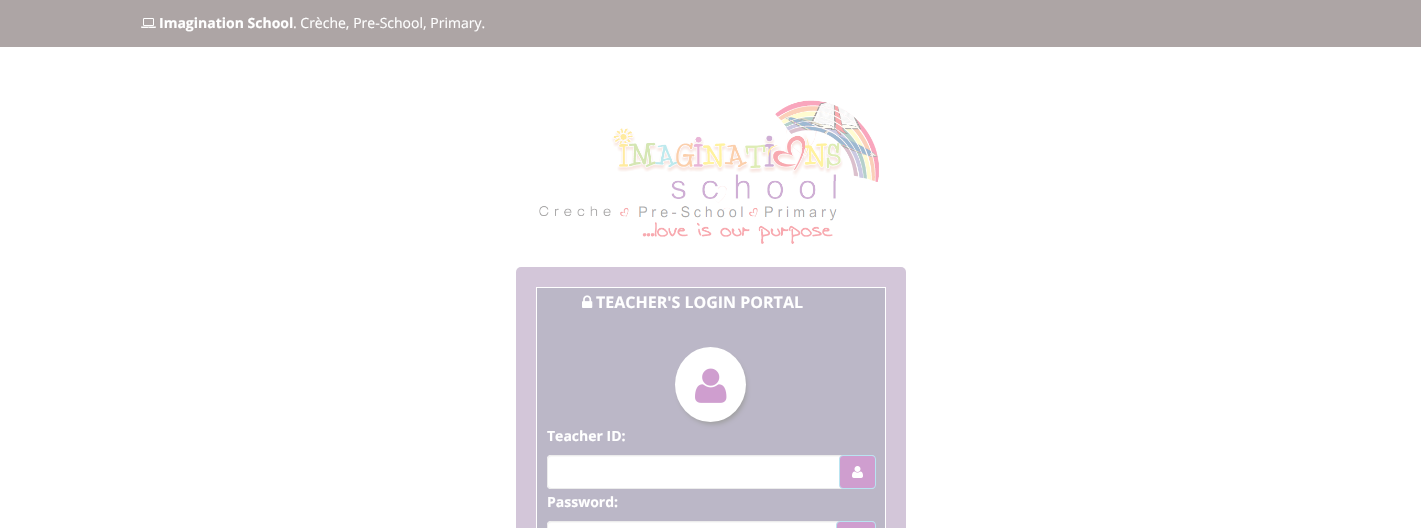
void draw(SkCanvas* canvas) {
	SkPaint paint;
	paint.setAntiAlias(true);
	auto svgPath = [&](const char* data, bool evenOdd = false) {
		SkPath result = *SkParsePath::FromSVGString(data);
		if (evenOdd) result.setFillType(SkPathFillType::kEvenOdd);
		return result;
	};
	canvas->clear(0xffffffff);
	paint.setColor(0xffada5a5);
	canvas->drawRect(SkRect::MakeXYWH(0, 0, 1421, 47), paint);
	canvas->drawImageRect(SkImages::DeferredFromEncodedData(SkData::MakeFromFileName("img1.png")), SkRect::MakeXYWH(141, 18, 15, 10), SkSamplingOptions());
	SkFont f1(fontMgr->matchFamilyStyle("Open Sans", SkFontStyle::Bold()), 14);
	f1.setSubpixel(true);
	paint.setColor(0xffffffff);
	canvas->drawString("Imagination School", 159, 28, f1, paint);
	SkFont f2(fontMgr->matchFamilyStyle("Open Sans", SkFontStyle::Normal()), 14);
	f2.setSubpixel(true);
	canvas->drawString(". Crèche, Pre-School, Primary.", 293, 28, f2, paint);
	canvas->drawImageRect(SkImages::DeferredFromEncodedData(SkData::MakeFromFileName("img2.png")), SkRect::MakeXYWH(539, 100, 340, 144), SkSamplingOptions());
	paint.setColor(0xffd3c6d9);
	canvas->drawRoundRect(SkRect::MakeXYWH(516, 267, 390, 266), 5, 5, paint);
	paint.setColor(0xffbbb7c7);
	canvas->drawRect(SkRect::MakeXYWH(536.5, 287.5, 349, 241), paint);
	paint.setStroke(true);
	paint.setStrokeWidth(1);
	paint.setColor(0xffffffff);
	canvas->drawRect(SkRect::MakeXYWH(536.5, 287.5, 349, 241), paint);
	canvas->drawImageRect(SkImages::DeferredFromEncodedData(SkData::MakeFromFileName("img3.png")), SkRect::MakeXYWH(582, 295, 11, 13), SkSamplingOptions());
	SkFont f3(fontMgr->matchFamilyStyle("Open Sans", SkFontStyle::Bold()), 16);
	f3.setSubpixel(true);
	paint.setStroke(false);
	canvas->drawString("TEACHER'S LOGIN PORTAL", 596, 308, f3, paint);
	paint.setColor(0xff9e9e9e);
	paint.setMaskFilter(SkMaskFilter::MakeBlur(kNormal_SkBlurStyle, 2.5));
	canvas->drawRoundRect(SkRect::MakeXYWH(679, 353, 67, 71), 33.5, 33.5, paint);
	paint.setMaskFilter(nullptr);
	paint.setColor(0xffffffff);
	canvas->drawOval(SkRect::MakeXYWH(675, 347, 71, 75), paint);
	canvas->drawImageRect(SkImages::DeferredFromEncodedData(SkData::MakeFromFileName("img4.png")), SkRect::MakeXYWH(695, 368, 32, 35), SkSamplingOptions());
	canvas->drawString("Teacher ID:", 547, 441, f1, paint);
	canvas->drawRoundRect(SkRect::MakeXYWH(547, 455, 328, 34), 4, 4, paint);
	paint.setColor(0xfff8f8f8);
	canvas->drawPath(svgPath("M551 457H871C873 457 874 458 874 460C874 458 873 456 871 456H551C549 456 548 458 548 460C548 458 549 457 551 457Z"), paint);
	paint.setStroke(true);
	paint.setColor(0xffececec);
	canvas->drawRoundRect(SkRect::MakeXYWH(547.5, 455.5, 327, 33), 3.5, 3.5, paint);
	paint.setStroke(false);
	paint.setColor(0xffcf9ecf);
	canvas->drawRoundRect(SkRect::MakeXYWH(839.5, 455.5, 36, 33), 3.5, 3.5, paint);
	paint.setStroke(true);
	paint.setColor(0xffb9e4f1);
	canvas->drawRoundRect(SkRect::MakeXYWH(839.5, 455.5, 36, 33), 3.5, 3.5, paint);
	canvas->drawImageRect(SkImages::DeferredFromEncodedData(SkData::MakeFromFileName("img5.png")), SkRect::MakeXYWH(852, 466, 11, 12), SkSamplingOptions());
	paint.setStroke(false);
	paint.setColor(0xffffffff);
	canvas->drawString("Password:", 547, 507, f1, paint);
	canvas->drawRoundRect(SkRect::MakeXYWH(547, 521, 328, 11), 4, 4, paint);
	paint.setColor(0xfff8f8f8);
	canvas->drawPath(svgPath("M551 523H871C873 523 874 524 874 526C874 524 873 522 871 522H551C549 522 548 524 548 526C548 524 549 523 551 523Z"), paint);
	paint.setStroke(true);
	paint.setColor(0xffececec);
	canvas->drawRoundRect(SkRect::MakeXYWH(547.5, 521.5, 327, 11), 3.5, 3.5, paint);
	paint.setStroke(false);
	paint.setColor(0xffcf9ecf);
	canvas->drawRoundRect(SkRect::MakeXYWH(836.5, 521.5, 39, 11), 3.5, 3.5, paint);
	paint.setStroke(true);
	paint.setColor(0xffb9e4f1);
	canvas->drawRoundRect(SkRect::MakeXYWH(836.5, 521.5, 39, 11), 3.5, 3.5, paint);
}
